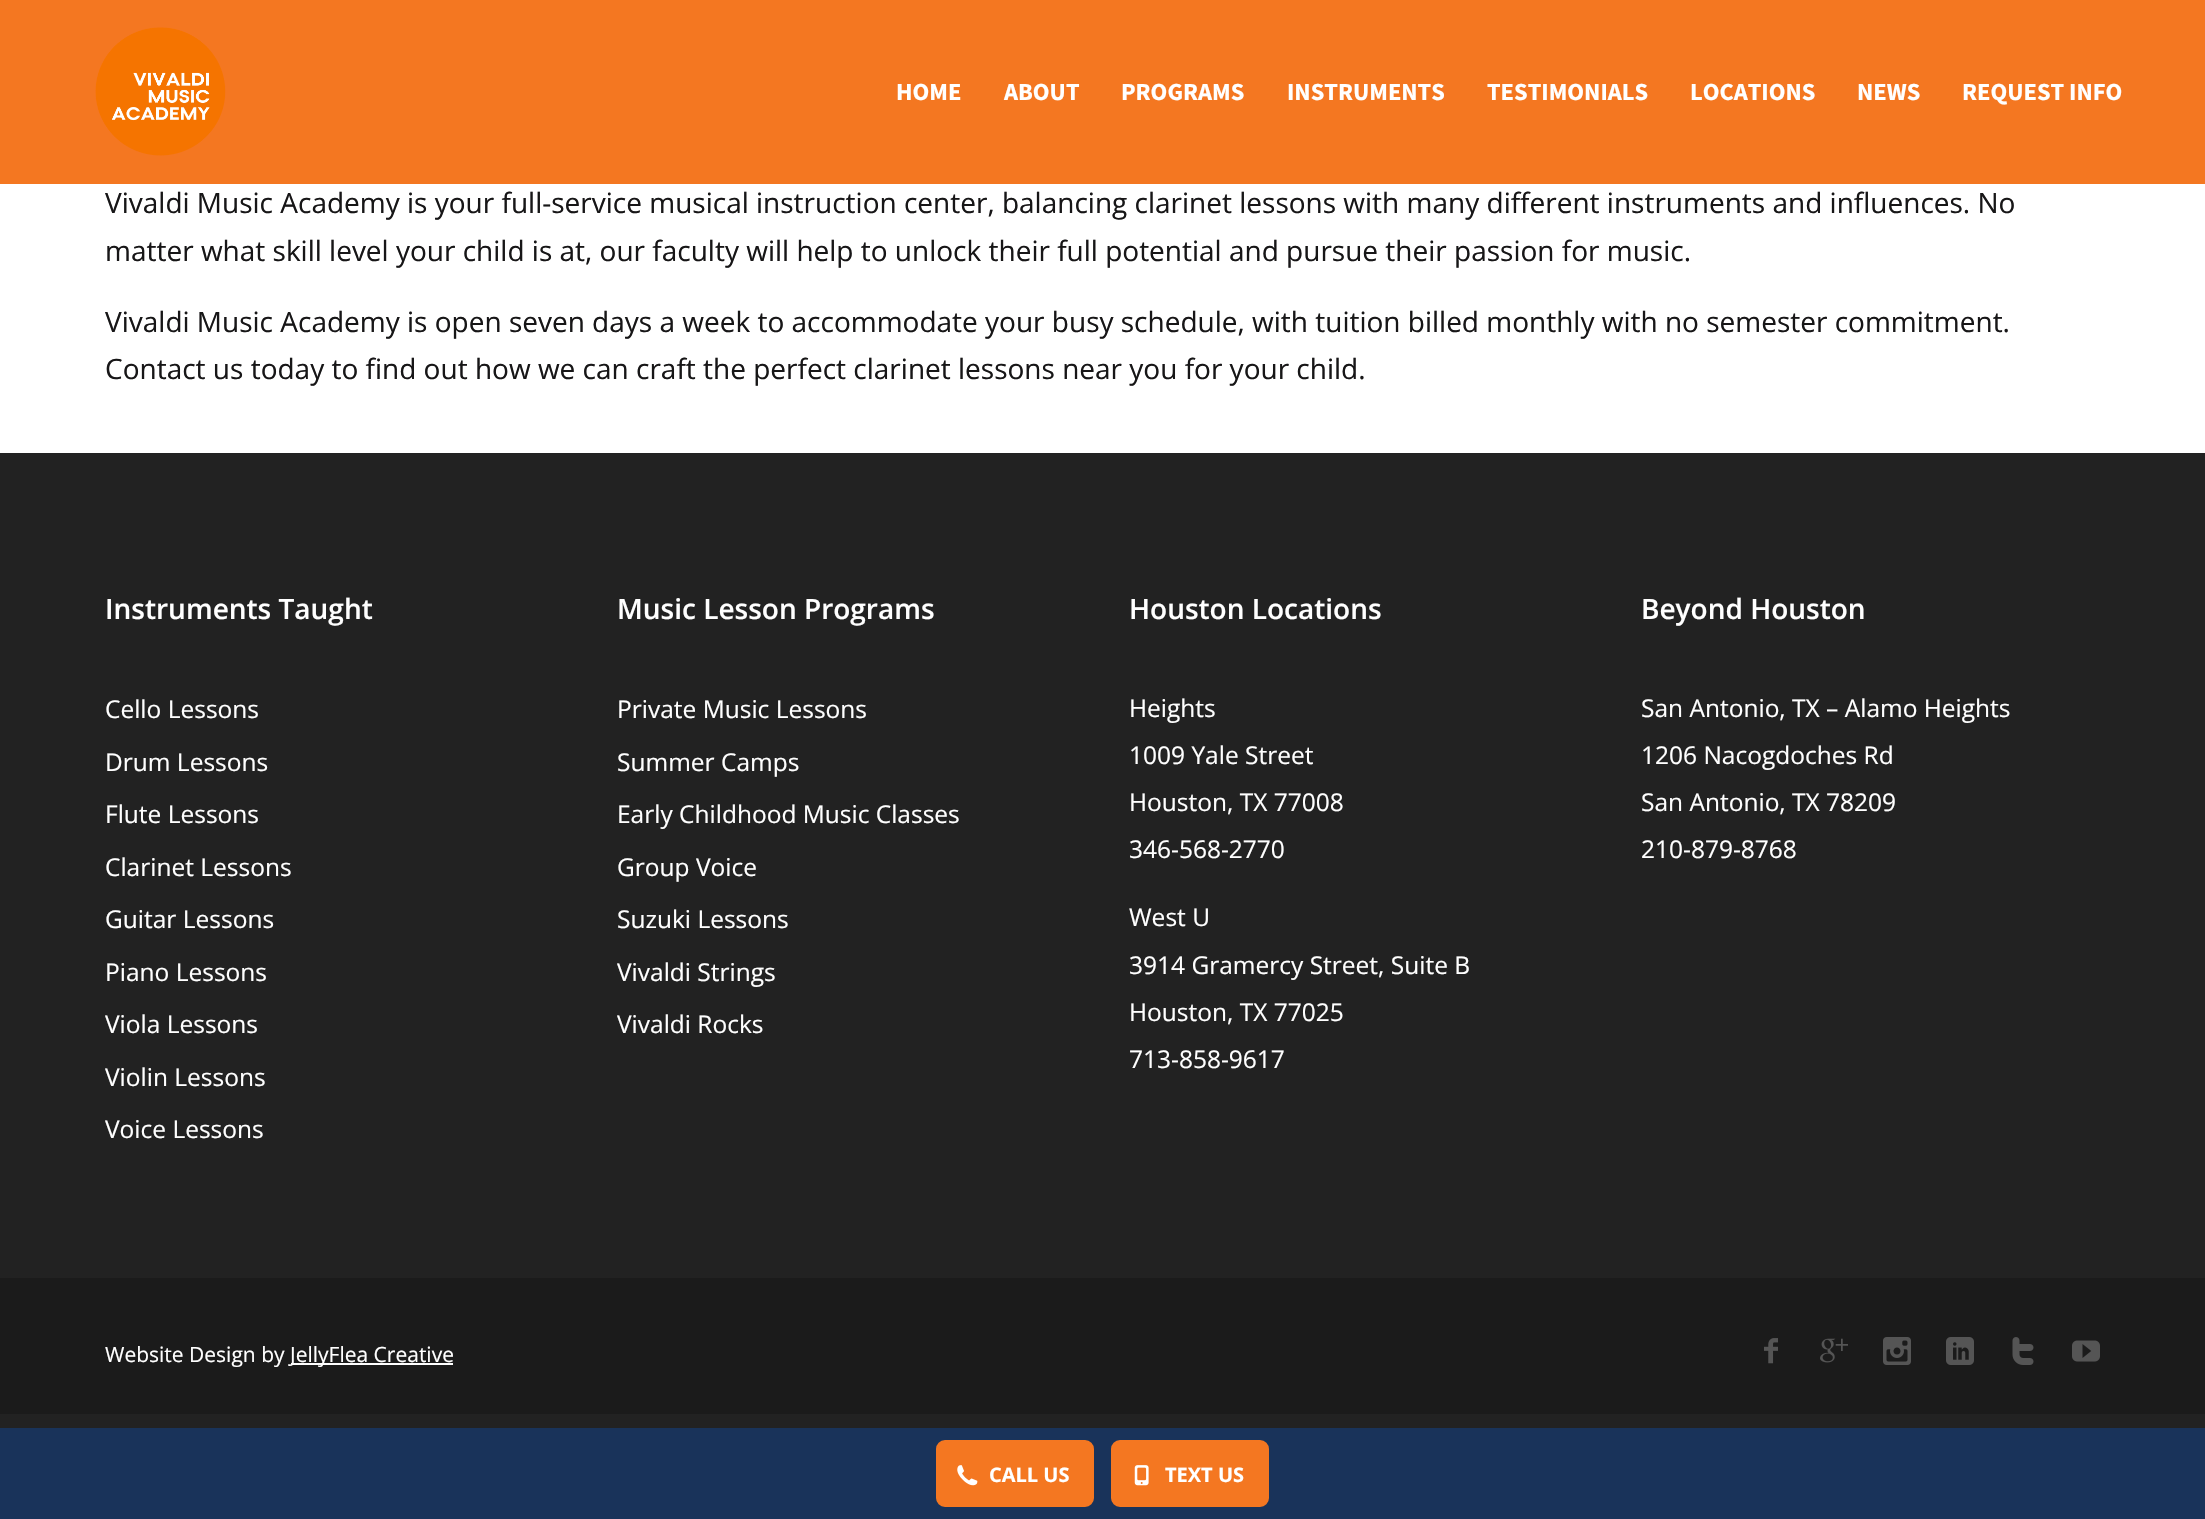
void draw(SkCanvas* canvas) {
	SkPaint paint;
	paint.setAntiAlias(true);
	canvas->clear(0xffffffff);
	paint.setColor(0xfff47721);
	canvas->drawRect(SkRect::MakeXYWH(0, 0, 2205, 184), paint);
	canvas->drawImageRect(SkImages::DeferredFromEncodedData(SkData::MakeFromFileName("img1.png")), SkRect::MakeXYWH(95, 27, 131, 129), SkSamplingOptions());
	SkFont f1(fontMgr->matchFamilyStyle("Source Sans Pro", SkFontStyle::Bold()), 24.5);
	f1.setSubpixel(true);
	paint.setColor(0xffffffff);
	canvas->drawString("HOME", 896, 100, f1, paint);
	canvas->drawString("ABOUT", 1004, 100, f1, paint);
	canvas->drawString("PROGRAMS", 1121, 100, f1, paint);
	canvas->drawString("INSTRUMENTS", 1287, 100, f1, paint);
	canvas->drawString("TESTIMONIALS", 1487, 100, f1, paint);
	canvas->drawString("LOCATIONS", 1690, 100, f1, paint);
	canvas->drawString("NEWS", 1857, 100, f1, paint);
	canvas->drawString("REQUEST INFO", 1962, 100, f1, paint);
	SkFont f2(fontMgr->matchFamilyStyle("Open Sans", SkFontStyle::Normal()), 28);
	f2.setSubpixel(true);
	paint.setColor(0xff171617);
	canvas->drawString("Vivaldi Music Academy is your full-service musical instruction center, balancing clarinet lessons with many different instruments and influences. No", 105, 213, f2, paint);
	canvas->drawString("matter what skill level your child is at, our faculty will help to unlock their full potential and pursue their passion for music.", 105, 261, f2, paint);
	canvas->drawString("Vivaldi Music Academy is open seven days a week to accommodate your busy schedule, with tuition billed monthly with no semester commitment.", 105, 332, f2, paint);
	canvas->drawString("Contact us today to find out how we can craft the perfect clarinet lessons near you for your child.", 105, 379, f2, paint);
	paint.setColor(0xff222222);
	canvas->drawRect(SkRect::MakeXYWH(0, 453, 2205, 975), paint);
	SkFont f3(fontMgr->matchFamilyStyle("Open Sans", SkFontStyle(600, SkFontStyle::kNormal_Width, SkFontStyle::kUpright_Slant)), 28);
	f3.setSubpixel(true);
	paint.setColor(0xffffffff);
	canvas->drawString("Instruments Taught", 105, 619, f3, paint);
	SkFont f4(fontMgr->matchFamilyStyle("Open Sans", SkFontStyle::Normal()), 24.5);
	f4.setSubpixel(true);
	canvas->drawString("Cello Lessons", 105, 718, f4, paint);
	canvas->drawString("Drum Lessons", 105, 771, f4, paint);
	canvas->drawString("Flute Lessons", 105, 823, f4, paint);
	canvas->drawString("Clarinet Lessons", 105, 876, f4, paint);
	canvas->drawString("Guitar Lessons", 105, 928, f4, paint);
	canvas->drawString("Piano Lessons", 105, 981, f4, paint);
	canvas->drawString("Viola Lessons", 105, 1033, f4, paint);
	canvas->drawString("Violin Lessons", 105, 1086, f4, paint);
	canvas->drawString("Voice Lessons", 105, 1138, f4, paint);
	canvas->drawString("Music Lesson Programs", 617, 619, f3, paint);
	canvas->drawString("Private Music Lessons", 617, 718, f4, paint);
	canvas->drawString("Summer Camps", 617, 771, f4, paint);
	canvas->drawString("Early Childhood Music Classes", 617, 823, f4, paint);
	canvas->drawString("Group Voice", 617, 876, f4, paint);
	canvas->drawString("Suzuki Lessons", 617, 928, f4, paint);
	canvas->drawString("Vivaldi Strings", 617, 981, f4, paint);
	canvas->drawString("Vivaldi Rocks", 617, 1033, f4, paint);
	canvas->drawString("Houston Locations", 1129, 619, f3, paint);
	canvas->drawString("Heights", 1129, 717, f4, paint);
	canvas->drawString("1009 Yale Street", 1129, 764, f4, paint);
	canvas->drawString("Houston, TX 77008", 1129, 811, f4, paint);
	canvas->drawString("346-568-2770", 1129, 858, f4, paint);
	canvas->drawString("West U", 1129, 926, f4, paint);
	canvas->drawString("3914 Gramercy Street, Suite B", 1129, 974, f4, paint);
	canvas->drawString("Houston, TX 77025", 1129, 1021, f4, paint);
	canvas->drawString("713-858-9617", 1129, 1068, f4, paint);
	canvas->drawString("Beyond Houston", 1641, 619, f3, paint);
	canvas->drawString("San Antonio, TX – Alamo Heights", 1641, 717, f4, paint);
	canvas->drawString("1206 Nacogdoches Rd", 1641, 764, f4, paint);
	canvas->drawString("San Antonio, TX 78209", 1641, 811, f4, paint);
	canvas->drawString("210-879-8768", 1641, 858, f4, paint);
	paint.setColor(0xff1b1b1b);
	canvas->drawRect(SkRect::MakeXYWH(0, 1278, 2205, 136), paint);
	SkFont f5(fontMgr->matchFamilyStyle("Open Sans", SkFontStyle::Normal()), 21);
	f5.setSubpixel(true);
	paint.setColor(0xffffffff);
	canvas->drawString("Website Design by", 105, 1362, f5, paint);
	canvas->drawRect(SkRect::MakeXYWH(291, 1363, 162, 2), paint);
	canvas->drawString("JellyFlea Creative", 290, 1362, f5, paint);
	canvas->drawImageRect(SkImages::DeferredFromEncodedData(SkData::MakeFromFileName("img2.png")), SkRect::MakeXYWH(1764, 1338, 14, 26), SkSamplingOptions());
	canvas->drawImageRect(SkImages::DeferredFromEncodedData(SkData::MakeFromFileName("img3.png")), SkRect::MakeXYWH(1820, 1338, 28, 25), SkSamplingOptions());
	canvas->drawImageRect(SkImages::DeferredFromEncodedData(SkData::MakeFromFileName("img4.png")), SkRect::MakeXYWH(1883, 1337, 28, 28), SkSamplingOptions());
	canvas->drawImageRect(SkImages::DeferredFromEncodedData(SkData::MakeFromFileName("img5.png")), SkRect::MakeXYWH(1946, 1337, 28, 28), SkSamplingOptions());
	canvas->drawImageRect(SkImages::DeferredFromEncodedData(SkData::MakeFromFileName("img6.png")), SkRect::MakeXYWH(2012, 1337, 22, 28), SkSamplingOptions());
	canvas->drawImageRect(SkImages::DeferredFromEncodedData(SkData::MakeFromFileName("img7.png")), SkRect::MakeXYWH(2072, 1340, 28, 22), SkSamplingOptions());
	paint.setColor(0xff19335a);
	canvas->drawRect(SkRect::MakeXYWH(0, 1428, 2205, 91), paint);
	paint.setColor(0xfff47721);
	canvas->drawRoundRect(SkRect::MakeXYWH(938, 1442, 154, 63), 7, 7, paint);
	paint.setStroke(true);
	paint.setStrokeWidth(4);
	canvas->drawRoundRect(SkRect::MakeXYWH(938, 1442, 154, 63), 7, 7, paint);
	canvas->drawImageRect(SkImages::DeferredFromEncodedData(SkData::MakeFromFileName("img8.png")), SkRect::MakeXYWH(957, 1465, 21, 21), SkSamplingOptions());
	SkFont f6(fontMgr->matchFamilyStyle("Open Sans", SkFontStyle::Bold()), 20);
	f6.setSubpixel(true);
	paint.setStroke(false);
	paint.setColor(0xffffffff);
	canvas->drawString("CALL US", 989, 1482, f6, paint);
	paint.setColor(0xfff47721);
	canvas->drawRoundRect(SkRect::MakeXYWH(1113, 1442, 154, 63), 7, 7, paint);
	paint.setStroke(true);
	canvas->drawRoundRect(SkRect::MakeXYWH(1113, 1442, 154, 63), 7, 7, paint);
	canvas->drawImageRect(SkImages::DeferredFromEncodedData(SkData::MakeFromFileName("img9.png")), SkRect::MakeXYWH(1134, 1465, 15, 21), SkSamplingOptions());
	paint.setStroke(false);
	paint.setColor(0xffffffff);
	canvas->drawString("TEXT US", 1165, 1482, f6, paint);
}
